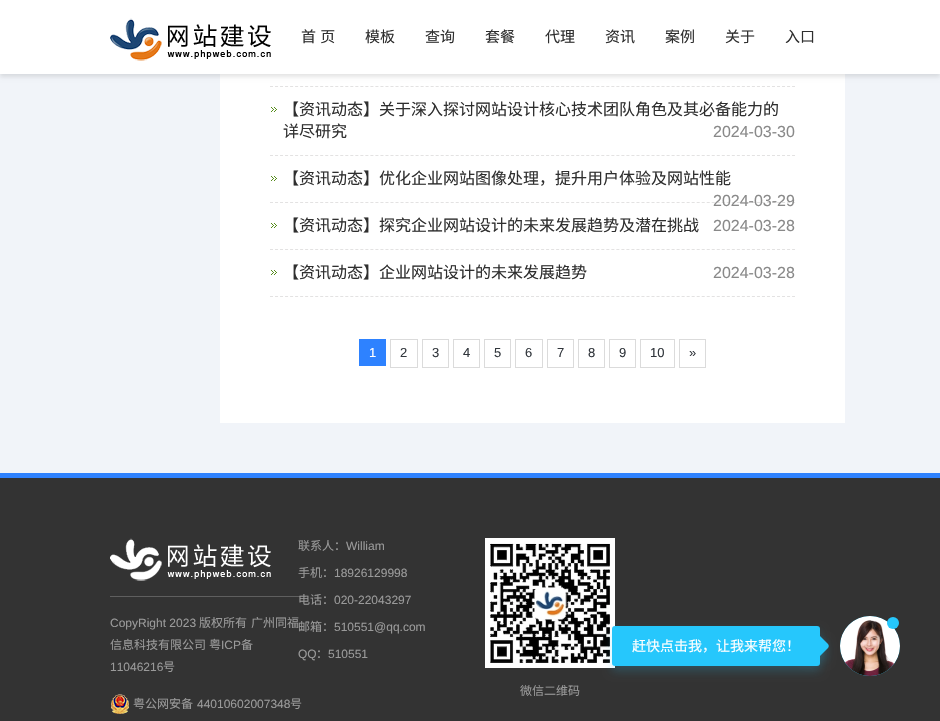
void draw(SkCanvas* canvas) {
	SkPaint paint;
	paint.setAntiAlias(true);
	auto spacedText = [&](const char* s, float x, float y, const SkFont& font, const SkPaint& ink, float letter, float word) {
		std::vector<SkGlyphID> glyphs(font.countText(s, strlen(s), SkTextEncoding::kUTF8));
		std::vector<float> xs(glyphs.size());
		font.textToGlyphs(s, strlen(s), SkTextEncoding::kUTF8, glyphs);
		font.getXPos(glyphs, xs, x);
		float extra = 0;
		for (size_t i = 0; i < glyphs.size(); i++) {
			xs[i] += extra;
			extra += letter + word * (glyphs[i] == font.unicharToGlyph(' '));
		}
		canvas->drawTextBlob(SkTextBlob::MakeFromPosHGlyphs(glyphs, xs, y, font), 0, 0, ink);
	};
	auto svgPath = [&](const char* data, bool evenOdd = false) {
		SkPath result = *SkParsePath::FromSVGString(data);
		if (evenOdd) result.setFillType(SkPathFillType::kEvenOdd);
		return result;
	};
	canvas->clear(0xfff1f4f9);
	paint.setColor(0xffffffff);
	canvas->drawRect(SkRect::MakeXYWH(220, 74, 625, 349), paint);
	paint.setColor(0x1a000000);
	paint.setMaskFilter(SkMaskFilter::MakeBlur(kNormal_SkBlurStyle, 2));
	canvas->drawRect(SkRect::MakeXYWH(0, 3, 940, 74), paint);
	paint.setMaskFilter(nullptr);
	paint.setColor(0xffffffff);
	canvas->drawRect(SkRect::MakeXYWH(0, 0, 940, 74), paint);
	canvas->drawImageRect(SkImages::DeferredFromEncodedData(SkData::MakeFromFileName("img1.png")), SkRect::MakeXYWH(110, 18, 161, 43), SkSamplingOptions());
	SkFont f1(fontMgr->matchFamilyStyle("Noto Sans CJK SC", SkFontStyle::Normal()), 15);
	f1.setSubpixel(true);
	paint.setColor(0xff2f2f2f);
	spacedText("首 页", 301, 42, f1, paint, 0, 1);
	canvas->drawString("模板", 365, 42, f1, paint);
	canvas->drawString("查询", 425, 42, f1, paint);
	canvas->drawString("套餐", 485, 42, f1, paint);
	canvas->drawString("代理", 545, 42, f1, paint);
	canvas->drawString("资讯", 605, 42, f1, paint);
	canvas->drawString("案例", 665, 42, f1, paint);
	canvas->drawString("关于", 725, 42, f1, paint);
	canvas->drawString("入口", 785, 42, f1, paint);
	paint.setStroke(true);
	paint.setStrokeWidth(1);
	paint.setColor(0xffe3e2e2);
	paint.setPathEffect(SkDashPathEffect::Make({{3, 2.02f}}, 0));
	canvas->drawPath(svgPath("M270 86.5H795"), paint);
	paint.setPathEffect(nullptr);
	canvas->drawImageRect(SkImages::DeferredFromEncodedData(SkData::MakeFromFileName("img2.png")), SkRect::MakeXYWH(271, 107, 6, 5), SkSamplingOptions());
	paint.setPathEffect(SkDashPathEffect::Make({{3, 2.02f}}, 0));
	canvas->drawPath(svgPath("M270 155.5H795"), paint);
	paint.setPathEffect(nullptr);
	SkFont f2(fontMgr->matchFamilyStyle("Noto Sans CJK SC", SkFontStyle::Normal()), 16);
	f2.setSubpixel(true);
	paint.setStroke(false);
	paint.setColor(0xff2f2f2f);
	canvas->drawString("【资讯动态】关于深入探讨网站设计核心技术团队角色及其必备能力的", 283, 115, f2, paint);
	canvas->drawString("详尽研究", 283, 137, f2, paint);
	SkFont f3(fontMgr->matchFamilyStyle("Liberation Sans", SkFontStyle::Normal()), 16);
	f3.setSubpixel(true);
	paint.setColor(0xff898989);
	canvas->drawString("2024-03-30", 713, 137, f3, paint);
	canvas->drawImageRect(SkImages::DeferredFromEncodedData(SkData::MakeFromFileName("img2.png")), SkRect::MakeXYWH(271, 176, 6, 5), SkSamplingOptions());
	paint.setStroke(true);
	paint.setColor(0xffe3e2e2);
	paint.setPathEffect(SkDashPathEffect::Make({{3, 2.02f}}, 0));
	canvas->drawPath(svgPath("M270 202.5H795"), paint);
	paint.setPathEffect(nullptr);
	paint.setStroke(false);
	paint.setColor(0xff2f2f2f);
	canvas->drawString("【资讯动态】优化企业网站图像处理，提升用户体验及网站性能", 283, 184, f2, paint);
	paint.setColor(0xff898989);
	canvas->drawString("2024-03-29", 713, 206, f3, paint);
	canvas->drawImageRect(SkImages::DeferredFromEncodedData(SkData::MakeFromFileName("img2.png")), SkRect::MakeXYWH(271, 223, 6, 5), SkSamplingOptions());
	paint.setStroke(true);
	paint.setColor(0xffe3e2e2);
	paint.setPathEffect(SkDashPathEffect::Make({{3, 2.02f}}, 0));
	canvas->drawPath(svgPath("M270 249.5H795"), paint);
	paint.setPathEffect(nullptr);
	paint.setStroke(false);
	paint.setColor(0xff2f2f2f);
	canvas->drawString("【资讯动态】探究企业网站设计的未来发展趋势及潜在挑战", 283, 231, f2, paint);
	paint.setColor(0xff898989);
	canvas->drawString("2024-03-28", 713, 231, f3, paint);
	canvas->drawImageRect(SkImages::DeferredFromEncodedData(SkData::MakeFromFileName("img2.png")), SkRect::MakeXYWH(271, 270, 6, 5), SkSamplingOptions());
	paint.setStroke(true);
	paint.setColor(0xffe3e2e2);
	paint.setPathEffect(SkDashPathEffect::Make({{3, 2.02f}}, 0));
	canvas->drawPath(svgPath("M270 296.5H795"), paint);
	paint.setPathEffect(nullptr);
	paint.setStroke(false);
	paint.setColor(0xff2f2f2f);
	canvas->drawString("【资讯动态】企业网站设计的未来发展趋势", 283, 278, f2, paint);
	paint.setColor(0xff898989);
	canvas->drawString("2024-03-28", 713, 278, f3, paint);
	paint.setColor(0xff2e82ff);
	canvas->drawRect(SkRect::MakeXYWH(359, 339, 27, 27), paint);
	SkFont f4(fontMgr->matchFamilyStyle("Liberation Sans", SkFontStyle::Normal()), 13);
	f4.setSubpixel(true);
	paint.setColor(0xffffffff);
	canvas->drawString("1", 369, 357, f4, paint);
	paint.setStroke(true);
	paint.setColor(0xffdbdbdb);
	canvas->drawRect(SkRect::MakeXYWH(390.5, 339.5, 27, 28), paint);
	paint.setStroke(false);
	paint.setColor(0xff31363c);
	canvas->drawString("2", 400, 357, f4, paint);
	paint.setStroke(true);
	paint.setColor(0xffdbdbdb);
	canvas->drawRect(SkRect::MakeXYWH(422.5, 339.5, 26, 28), paint);
	paint.setStroke(false);
	paint.setColor(0xff31363c);
	canvas->drawString("3", 432, 357, f4, paint);
	paint.setStroke(true);
	paint.setColor(0xffdbdbdb);
	canvas->drawRect(SkRect::MakeXYWH(453.5, 339.5, 26, 28), paint);
	paint.setStroke(false);
	paint.setColor(0xff31363c);
	canvas->drawString("4", 463, 357, f4, paint);
	paint.setStroke(true);
	paint.setColor(0xffdbdbdb);
	canvas->drawRect(SkRect::MakeXYWH(484.5, 339.5, 26, 28), paint);
	paint.setStroke(false);
	paint.setColor(0xff31363c);
	canvas->drawString("5", 494, 357, f4, paint);
	paint.setStroke(true);
	paint.setColor(0xffdbdbdb);
	canvas->drawRect(SkRect::MakeXYWH(515.5, 339.5, 27, 28), paint);
	paint.setStroke(false);
	paint.setColor(0xff31363c);
	canvas->drawString("6", 525, 357, f4, paint);
	paint.setStroke(true);
	paint.setColor(0xffdbdbdb);
	canvas->drawRect(SkRect::MakeXYWH(547.5, 339.5, 26, 28), paint);
	paint.setStroke(false);
	paint.setColor(0xff31363c);
	canvas->drawString("7", 557, 357, f4, paint);
	paint.setStroke(true);
	paint.setColor(0xffdbdbdb);
	canvas->drawRect(SkRect::MakeXYWH(578.5, 339.5, 26, 28), paint);
	paint.setStroke(false);
	paint.setColor(0xff31363c);
	canvas->drawString("8", 588, 357, f4, paint);
	paint.setStroke(true);
	paint.setColor(0xffdbdbdb);
	canvas->drawRect(SkRect::MakeXYWH(609.5, 339.5, 26, 28), paint);
	paint.setStroke(false);
	paint.setColor(0xff31363c);
	canvas->drawString("9", 619, 357, f4, paint);
	paint.setStroke(true);
	paint.setColor(0xffdbdbdb);
	canvas->drawRect(SkRect::MakeXYWH(640.5, 339.5, 34, 28), paint);
	paint.setStroke(false);
	paint.setColor(0xff31363c);
	canvas->drawString("10", 650, 357, f4, paint);
	paint.setStroke(true);
	paint.setColor(0xffdbdbdb);
	canvas->drawRect(SkRect::MakeXYWH(679.5, 339.5, 26, 28), paint);
	paint.setStroke(false);
	paint.setColor(0xff31363c);
	canvas->drawString("»", 689, 357, f4, paint);
	paint.setColor(0xff333333);
	canvas->drawRect(SkRect::MakeXYWH(0, 478, 940, 243), paint);
	paint.setColor(0xff2e82ff);
	canvas->drawRect(SkRect::MakeXYWH(0, 473, 940, 5), paint);
	canvas->drawImageRect(SkImages::DeferredFromEncodedData(SkData::MakeFromFileName("img3.png")), SkRect::MakeXYWH(110, 538, 161, 43), SkSamplingOptions());
	paint.setColor(0xff5f5f5f);
	canvas->drawRect(SkRect::MakeXYWH(110, 596, 196, 1), paint);
	SkFont f5(fontMgr->matchFamilyStyle("Liberation Sans", SkFontStyle::Normal()), 12);
	f5.setSubpixel(true);
	paint.setColor(0xff9a9a9a);
	canvas->drawString("CopyRight 2023", 110, 627, f5, paint);
	SkFont f6(fontMgr->matchFamilyStyle("Noto Sans CJK SC", SkFontStyle::Normal()), 12);
	f6.setSubpixel(true);
	canvas->drawString("版权所有", 199, 627, f6, paint);
	canvas->drawString("广州同福", 251, 627, f6, paint);
	canvas->drawString("信息科技有限公司", 110, 649, f6, paint);
	canvas->drawString("粤", 209, 649, f6, paint);
	canvas->drawString("ICP", 221, 649, f5, paint);
	canvas->drawString("备", 241, 649, f6, paint);
	canvas->drawString("11046216", 110, 671, f5, paint);
	canvas->drawString("号", 163, 671, f6, paint);
	canvas->drawImageRect(SkImages::DeferredFromEncodedData(SkData::MakeFromFileName("img4.png")), SkRect::MakeXYWH(111, 694, 18, 20), SkSamplingOptions());
	canvas->drawString("粤公网安备", 133, 708, f6, paint);
	canvas->drawString("44010602007348", 197, 708, f5, paint);
	canvas->drawString("号", 290, 708, f6, paint);
	canvas->drawString("联系人：", 298, 550, f6, paint);
	canvas->drawString("William", 346, 550, f5, paint);
	canvas->drawString("手机：", 298, 577, f6, paint);
	canvas->drawString("18926129998", 334, 577, f5, paint);
	canvas->drawString("电话：", 298, 604, f6, paint);
	canvas->drawString("020-22043297", 334, 604, f5, paint);
	canvas->drawString("邮箱：", 298, 631, f6, paint);
	canvas->drawString("510551@qq.com", 334, 631, f5, paint);
	canvas->drawString("QQ", 298, 658, f5, paint);
	canvas->drawString("：", 316, 658, f6, paint);
	canvas->drawString("510551", 328, 658, f5, paint);
	canvas->drawImageRect(SkImages::DeferredFromEncodedData(SkData::MakeFromFileName("img5.png")), SkRect::MakeXYWH(485, 538, 130, 130), SkSamplingOptions());
	canvas->drawString("微信二维码", 520, 695, f6, paint);
	paint.setColor(0x3326c7fc);
	paint.setMaskFilter(SkMaskFilter::MakeBlur(kNormal_SkBlurStyle, 5));
	canvas->drawRoundRect(SkRect::MakeXYWH(806, 641, 20, 20), 3, 3, paint);
	paint.setMaskFilter(nullptr);
	paint.setColor(0xff305865);
	canvas->drawCircle(870, 646, 30, paint);
	paint.setColor(0x4026c7fc);
	canvas->drawCircle(870, 646, 30, paint);
	canvas->drawCircle(870, 646, 30, paint);
	canvas->drawImageRect(SkImages::DeferredFromEncodedData(SkData::MakeFromFileName("img6.png")), SkRect::MakeXYWH(840, 616, 60, 60), SkSamplingOptions());
	paint.setColor(0xff26c7fc);
	canvas->drawCircle(893, 623, 6, paint);
	paint.setColor(0x3326c7fc);
	paint.setMaskFilter(SkMaskFilter::MakeBlur(kNormal_SkBlurStyle, 5));
	canvas->drawRoundRect(SkRect::MakeXYWH(612, 631, 208, 40), 3, 3, paint);
	paint.setMaskFilter(nullptr);
	paint.setColor(0xff26c7fc);
	canvas->drawPath(svgPath("M804 644L814 634C815 633 817 633 818 634L828 644C829 645 829 647 828 648L818 658C817 659 815 659 814 658L804 648C803 647 803 645 804 644Z"), paint);
	canvas->drawRoundRect(SkRect::MakeXYWH(612, 626, 208, 40), 3, 3, paint);
	SkFont f7(fontMgr->matchFamilyStyle("Noto Sans CJK SC", SkFontStyle::Normal()), 14);
	f7.setSubpixel(true);
	paint.setColor(0xffffffff);
	canvas->drawString("赶快点击我，让我来帮您！", 632, 651, f7, paint);
}
